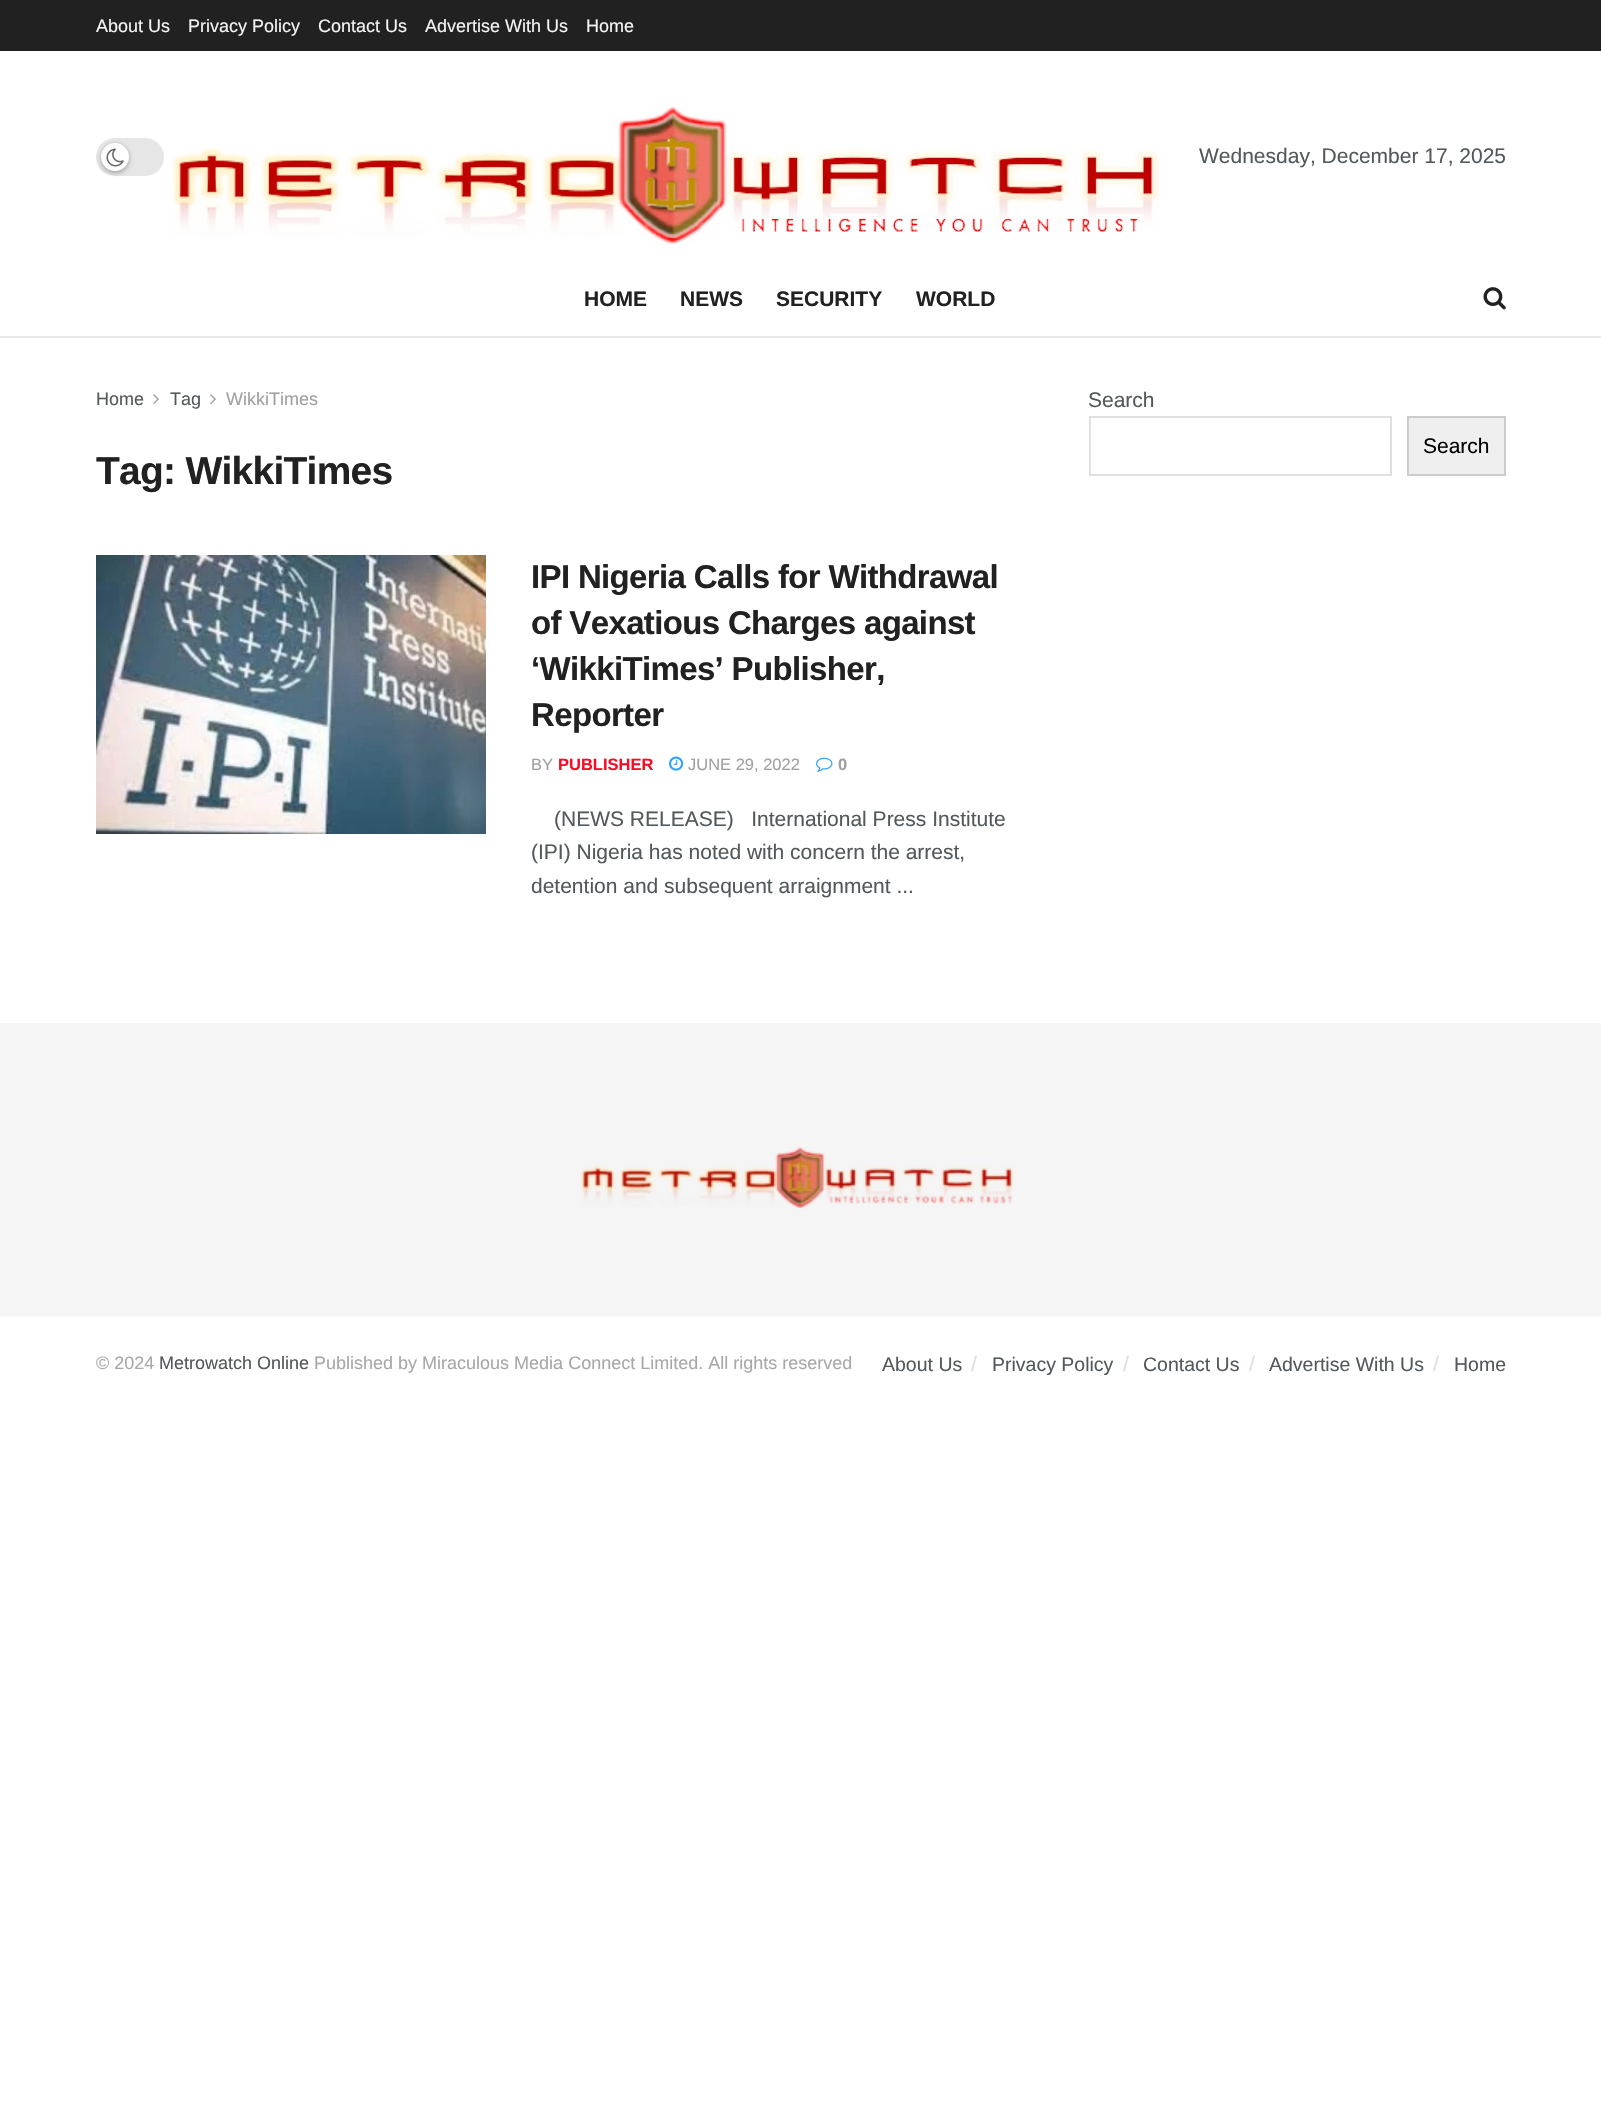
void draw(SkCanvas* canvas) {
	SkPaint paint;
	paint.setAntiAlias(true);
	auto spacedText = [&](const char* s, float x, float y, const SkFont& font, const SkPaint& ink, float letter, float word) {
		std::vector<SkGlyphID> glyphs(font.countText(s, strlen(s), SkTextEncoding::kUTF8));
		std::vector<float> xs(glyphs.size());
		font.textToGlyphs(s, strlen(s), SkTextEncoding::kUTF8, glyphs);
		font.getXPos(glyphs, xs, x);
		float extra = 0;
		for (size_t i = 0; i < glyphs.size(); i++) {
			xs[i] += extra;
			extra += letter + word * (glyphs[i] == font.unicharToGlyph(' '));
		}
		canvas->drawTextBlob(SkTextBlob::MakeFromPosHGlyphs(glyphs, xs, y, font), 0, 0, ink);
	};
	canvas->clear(0xffffffff);
	paint.setColor(0xff212121);
	canvas->drawRect(SkRect::MakeXYWH(0, 0, 1601, 51), paint);
	SkFont f1(fontMgr->matchFamilyStyle("Liberation Sans", SkFontStyle::Normal()), 18);
	f1.setSubpixel(true);
	paint.setColor(0xfff5f5f5);
	canvas->drawString("About Us", 96, 32, f1, paint);
	canvas->drawString("Privacy Policy", 188, 32, f1, paint);
	canvas->drawString("Contact Us", 318, 32, f1, paint);
	canvas->drawString("Advertise With Us", 425, 32, f1, paint);
	canvas->drawString("Home", 586, 32, f1, paint);
	paint.setColor(0xffe6e6e6);
	canvas->drawRoundRect(SkRect::MakeXYWH(96, 138, 68, 38), 19, 19, paint);
	paint.setColor(0x4d000000);
	paint.setMaskFilter(SkMaskFilter::MakeBlur(kNormal_SkBlurStyle, 2));
	canvas->drawRoundRect(SkRect::MakeXYWH(101, 144, 28, 29), 14, 14, paint);
	paint.setMaskFilter(nullptr);
	paint.setColor(0xffffffff);
	canvas->drawCircle(115, 157, 14, paint);
	canvas->drawImageRect(SkImages::DeferredFromEncodedData(SkData::MakeFromFileName("img1.png")), SkRect::MakeXYWH(106, 148, 18, 19), SkSamplingOptions());
	canvas->drawImageRect(SkImages::DeferredFromEncodedData(SkData::MakeFromFileName("img2.png")), SkRect::MakeXYWH(172, 106, 988, 139), SkSamplingOptions());
	SkFont f2(fontMgr->matchFamilyStyle("Liberation Sans", SkFontStyle::Normal()), 21);
	f2.setSubpixel(true);
	paint.setColor(0xff53585c);
	canvas->drawString("Wednesday, December 17, 2025", 1199, 163, f2, paint);
	paint.setColor(0xffe8e8e8);
	canvas->drawRect(SkRect::MakeXYWH(0, 336, 1601, 2), paint);
	SkFont f3(fontMgr->matchFamilyStyle("Liberation Sans", SkFontStyle::Bold()), 21);
	f3.setSubpixel(true);
	paint.setColor(0xff212121);
	canvas->drawString("HOME", 584, 306, f3, paint);
	canvas->drawString("NEWS", 680, 306, f3, paint);
	canvas->drawString("SECURITY", 776, 306, f3, paint);
	canvas->drawString("WORLD", 916, 306, f3, paint);
	canvas->drawImageRect(SkImages::DeferredFromEncodedData(SkData::MakeFromFileName("img3.png")), SkRect::MakeXYWH(1483, 287, 23, 23), SkSamplingOptions());
	paint.setColor(0xff53585c);
	canvas->drawString("Home", 96, 405, f1, paint);
	canvas->drawImageRect(SkImages::DeferredFromEncodedData(SkData::MakeFromFileName("img4.png")), SkRect::MakeXYWH(153, 394, 6, 11), SkSamplingOptions());
	canvas->drawString("Tag", 170, 405, f1, paint);
	canvas->drawImageRect(SkImages::DeferredFromEncodedData(SkData::MakeFromFileName("img4.png")), SkRect::MakeXYWH(210, 394, 6, 11), SkSamplingOptions());
	paint.setColor(0xffa0a0a0);
	canvas->drawString("WikkiTimes", 226, 405, f1, paint);
	SkFont f4(fontMgr->matchFamilyStyle("Liberation Sans", SkFontStyle::Bold()), 39);
	f4.setSubpixel(true);
	paint.setColor(0xff212121);
	spacedText("Tag: WikkiTimes", 96, 484, f4, paint, -0.75, 0);
	canvas->drawImageRect(SkImages::DeferredFromEncodedData(SkData::MakeFromFileName("img5.png")), SkRect::MakeXYWH(96, 555, 390, 279), SkSamplingOptions());
	SkFont f5(fontMgr->matchFamilyStyle("Liberation Sans", SkFontStyle::Bold()), 33);
	f5.setSubpixel(true);
	spacedText("IPI Nigeria Calls for Withdrawal", 531, 588, f5, paint, -0.65, 0);
	spacedText("of Vexatious Charges against", 531, 634, f5, paint, -0.65, 0);
	spacedText("‘WikkiTimes’ Publisher,", 531, 680, f5, paint, -0.65, 0);
	spacedText("Reporter", 531, 726, f5, paint, -0.65, 0);
	SkFont f6(fontMgr->matchFamilyStyle("Liberation Sans", SkFontStyle::Normal()), 16.5);
	f6.setSubpixel(true);
	paint.setColor(0xffa0a0a0);
	canvas->drawString("BY", 531, 770, f6, paint);
	SkFont f7(fontMgr->matchFamilyStyle("Liberation Sans", SkFontStyle::Bold()), 16.5);
	f7.setSubpixel(true);
	paint.setColor(0xfff70d28);
	canvas->drawString("PUBLISHER", 558, 770, f7, paint);
	canvas->drawImageRect(SkImages::DeferredFromEncodedData(SkData::MakeFromFileName("img6.png")), SkRect::MakeXYWH(669, 756, 15, 15), SkSamplingOptions());
	paint.setColor(0xffa0a0a0);
	canvas->drawString("JUNE 29, 2022", 688, 770, f6, paint);
	canvas->drawImageRect(SkImages::DeferredFromEncodedData(SkData::MakeFromFileName("img7.png")), SkRect::MakeXYWH(816, 757, 17, 15), SkSamplingOptions());
	canvas->drawString("0", 838, 770, f7, paint);
	paint.setColor(0xff53585c);
	canvas->drawString("(NEWS RELEASE)   International Press Institute", 554, 826, f2, paint);
	canvas->drawString("(IPI) Nigeria has noted with concern the arrest,", 531, 859, f2, paint);
	canvas->drawString("detention and subsequent arraignment ...", 531, 893, f2, paint);
	canvas->drawString("Search", 1088, 407, f2, paint);
	paint.setStroke(true);
	paint.setStrokeWidth(2);
	paint.setColor(0xffe0e0e0);
	canvas->drawRect(SkRect::MakeXYWH(1090, 417, 301, 58), paint);
	paint.setStroke(false);
	paint.setColor(0xffefefef);
	canvas->drawRect(SkRect::MakeXYWH(1408, 417, 97, 58), paint);
	paint.setStroke(true);
	paint.setColor(0xffcccccc);
	canvas->drawRect(SkRect::MakeXYWH(1408, 417, 97, 58), paint);
	paint.setStroke(false);
	paint.setColor(0xff000000);
	canvas->drawString("Search", 1423, 453, f2, paint);
	paint.setColor(0xfff5f5f5);
	canvas->drawRect(SkRect::MakeXYWH(0, 1023, 1601, 294), paint);
	canvas->drawImageRect(SkImages::DeferredFromEncodedData(SkData::MakeFromFileName("img8.png")), SkRect::MakeXYWH(580, 1147, 435, 62), SkSamplingOptions());
	paint.setColor(0xffa8a8aa);
	canvas->drawString("© 2024", 96, 1369, f1, paint);
	paint.setColor(0xff53585c);
	canvas->drawString("Metrowatch Online", 159, 1369, f1, paint);
	paint.setColor(0xffa8a8aa);
	canvas->drawString("Published by Miraculous Media Connect Limited. All rights reserved", 314, 1369, f1, paint);
	SkFont f8(fontMgr->matchFamilyStyle("Liberation Sans", SkFontStyle::Normal()), 19.5);
	f8.setSubpixel(true);
	paint.setColor(0xff53585c);
	canvas->drawString("About Us", 882, 1371, f8, paint);
	paint.setColor(0xffe0e0e0);
	canvas->drawString("/", 971, 1371, f2, paint);
	paint.setColor(0xff53585c);
	canvas->drawString("Privacy Policy", 992, 1371, f8, paint);
	paint.setColor(0xffe0e0e0);
	canvas->drawString("/", 1123, 1371, f2, paint);
	paint.setColor(0xff53585c);
	canvas->drawString("Contact Us", 1143, 1371, f8, paint);
	paint.setColor(0xffe0e0e0);
	canvas->drawString("/", 1249, 1371, f2, paint);
	paint.setColor(0xff53585c);
	canvas->drawString("Advertise With Us", 1269, 1371, f8, paint);
	paint.setColor(0xffe0e0e0);
	canvas->drawString("/", 1433, 1371, f2, paint);
	paint.setColor(0xff53585c);
	canvas->drawString("Home", 1454, 1371, f8, paint);
}
